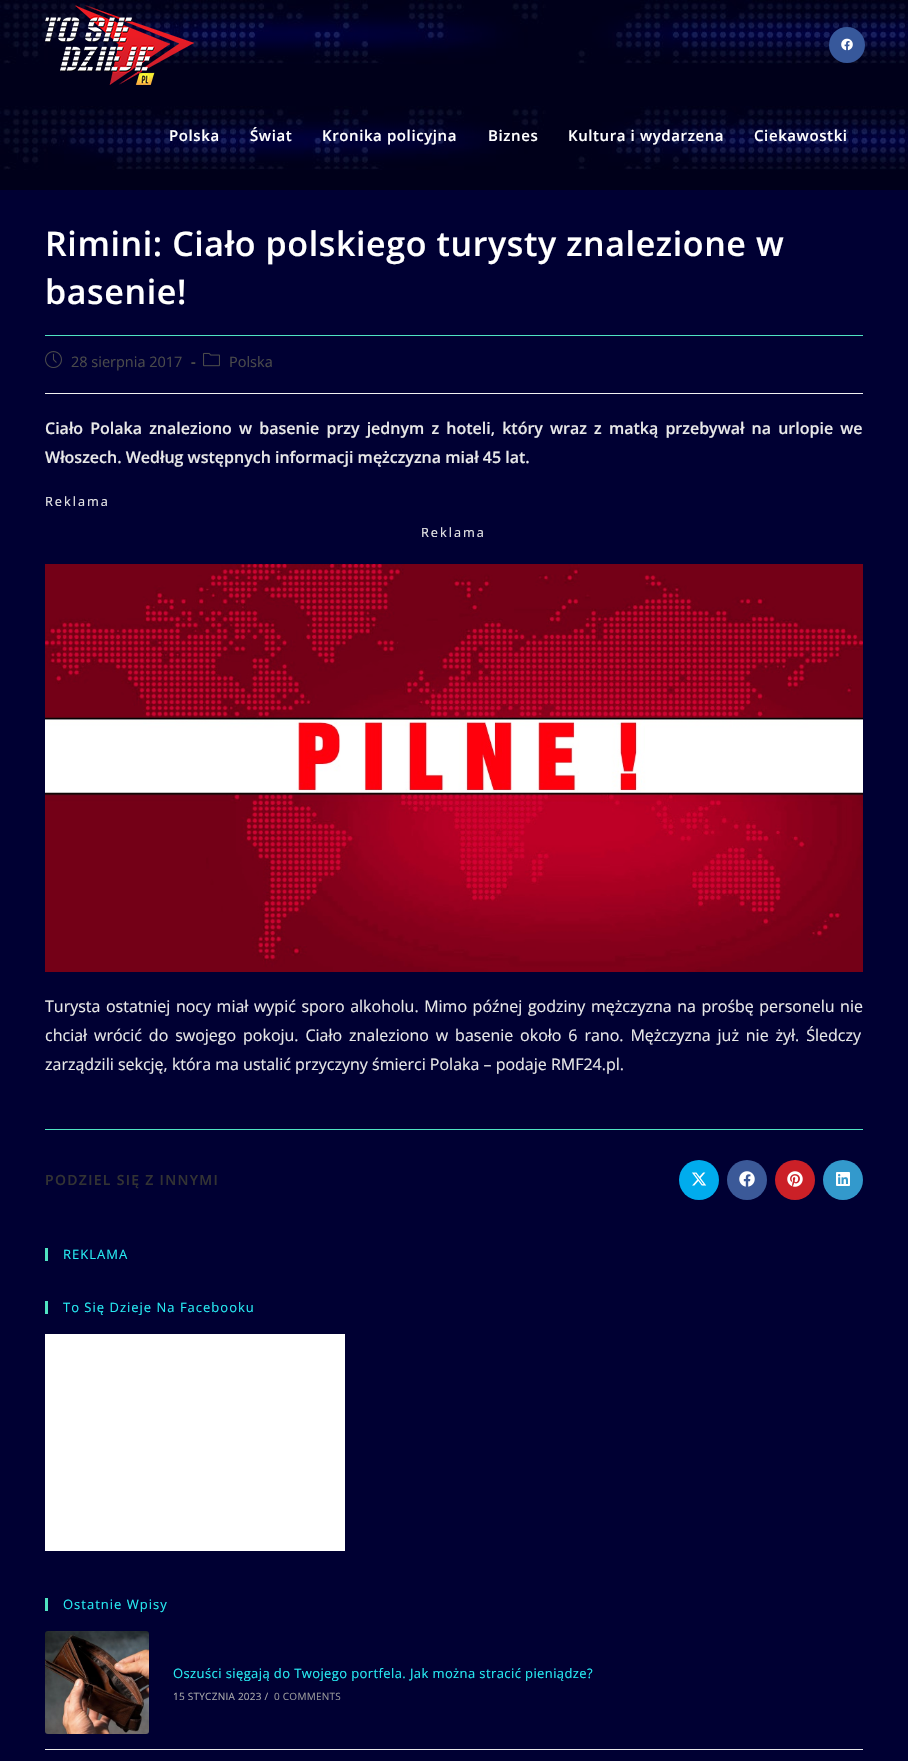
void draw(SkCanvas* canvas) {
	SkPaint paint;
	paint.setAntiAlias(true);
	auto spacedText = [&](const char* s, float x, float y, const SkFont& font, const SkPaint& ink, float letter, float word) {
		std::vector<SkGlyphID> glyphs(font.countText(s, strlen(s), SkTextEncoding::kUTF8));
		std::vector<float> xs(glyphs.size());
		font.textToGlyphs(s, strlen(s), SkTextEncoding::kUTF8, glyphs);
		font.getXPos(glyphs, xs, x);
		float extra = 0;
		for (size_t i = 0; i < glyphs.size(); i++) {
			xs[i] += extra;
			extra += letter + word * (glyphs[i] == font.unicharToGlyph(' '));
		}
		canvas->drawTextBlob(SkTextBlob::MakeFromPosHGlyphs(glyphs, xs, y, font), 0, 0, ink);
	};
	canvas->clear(0xff000033);
	paint.setColor(0xff00001a);
	canvas->drawRect(SkRect::MakeXYWH(0, 170, 908, 20), paint);
	canvas->drawImageRect(SkImages::DeferredFromEncodedData(SkData::MakeFromFileName("img1.png")), SkRect::MakeXYWH(0, 0, 908, 170), SkSamplingOptions());
	canvas->drawImageRect(SkImages::DeferredFromEncodedData(SkData::MakeFromFileName("img2.png")), SkRect::MakeXYWH(45, 5, 149, 80), SkSamplingOptions());
	paint.setColor(0xff37589b);
	canvas->drawCircle(847, 45, 18, paint);
	canvas->drawImageRect(SkImages::DeferredFromEncodedData(SkData::MakeFromFileName("img3.png")), SkRect::MakeXYWH(841, 38, 12, 13), SkSamplingOptions());
	SkFont f1(fontMgr->matchFamilyStyle("Open Sans", SkFontStyle(600, SkFontStyle::kNormal_Width, SkFontStyle::kUpright_Slant)), 15);
	f1.setSubpixel(true);
	paint.setColor(0xffffffff);
	spacedText("Polska", 169, 141, f1, paint, 0.6, 0);
	spacedText("Świat", 250, 141, f1, paint, 0.6, 0);
	spacedText("Kronika policyjna", 322, 141, f1, paint, 0.6, 0);
	spacedText("Biznes", 488, 141, f1, paint, 0.6, 0);
	spacedText("Kultura i wydarzena", 568, 141, f1, paint, 0.6, 0);
	spacedText("Ciekawostki", 754, 141, f1, paint, 0.6, 0);
	paint.setColor(0xff50e3c2);
	canvas->drawRect(SkRect::MakeXYWH(45, 335, 818, 1), paint);
	SkFont f2(fontMgr->matchFamilyStyle("Open Sans", SkFontStyle(600, SkFontStyle::kNormal_Width, SkFontStyle::kUpright_Slant)), 34);
	f2.setSubpixel(true);
	paint.setColor(0xffffffff);
	spacedText("Rimini: Ciało polskiego turysty znalezione w", 45, 256, f2, paint, 0.6, 0);
	spacedText("basenie!", 45, 304, f2, paint, 0.6, 0);
	paint.setColor(0xfff1f1f1);
	canvas->drawRect(SkRect::MakeXYWH(45, 393, 818, 1), paint);
	canvas->drawImageRect(SkImages::DeferredFromEncodedData(SkData::MakeFromFileName("img4.png")), SkRect::MakeXYWH(45, 351, 17, 17), SkSamplingOptions());
	SkFont f3(fontMgr->matchFamilyStyle("Open Sans", SkFontStyle::Normal()), 14.5);
	f3.setSubpixel(true);
	paint.setColor(0xff4a4a4a);
	canvas->drawString("28 sierpnia 2017", 71, 367, f3, paint);
	SkFont f4(fontMgr->matchFamilyStyle("Open Sans", SkFontStyle::Bold()), 14.5);
	f4.setSubpixel(true);
	canvas->drawString("-", 191, 367, f4, paint);
	canvas->drawImageRect(SkImages::DeferredFromEncodedData(SkData::MakeFromFileName("img5.png")), SkRect::MakeXYWH(203, 352, 17, 15), SkSamplingOptions());
	canvas->drawString("Polska", 229, 367, f3, paint);
	SkFont f5(fontMgr->matchFamilyStyle("Open Sans", SkFontStyle(600, SkFontStyle::kNormal_Width, SkFontStyle::kUpright_Slant)), 16);
	f5.setSubpixel(true);
	paint.setColor(0xffe8e8e8);
	spacedText("Ciało Polaka znaleziono w basenie przy jednym z hoteli, który wraz z matką przebywał na urlopie we", 45, 434, f5, paint, 0, 3);
	canvas->drawString("Włoszech. Według wstępnych informacji mężczyzna miał 45 lat.", 45, 463, f5, paint);
	SkFont f6(fontMgr->matchFamilyStyle("Open Sans", SkFontStyle::Normal()), 12.75);
	f6.setSubpixel(true);
	spacedText("Reklama", 45, 506, f6, paint, 2, 0);
	spacedText("Reklama", 421, 537, f6, paint, 2, 0);
	canvas->drawImageRect(SkImages::DeferredFromEncodedData(SkData::MakeFromFileName("img6.png")), SkRect::MakeXYWH(45, 564, 818, 408), SkSamplingOptions());
	SkFont f7(fontMgr->matchFamilyStyle("Open Sans", SkFontStyle::Normal()), 16);
	f7.setSubpixel(true);
	spacedText("Turysta ostatniej nocy miał wypić sporo alkoholu. Mimo późnej godziny mężczyzna na prośbę personelu nie", 45, 1012, f7, paint, 0, 1.4);
	spacedText("chciał wrócić do swojego pokoju. Ciało znaleziono w basenie około 6 rano. Mężczyzna już nie żył. Śledczy", 45, 1041, f7, paint, 0, 2.75);
	canvas->drawString("zarządzili sekcję, która ma ustalić przyczyny śmierci Polaka – podaje RMF24.pl.", 45, 1070, f7, paint);
	paint.setColor(0xff50e3c2);
	canvas->drawRect(SkRect::MakeXYWH(45, 1129, 818, 1), paint);
	SkFont f8(fontMgr->matchFamilyStyle("Open Sans", SkFontStyle(600, SkFontStyle::kNormal_Width, SkFontStyle::kUpright_Slant)), 14);
	f8.setSubpixel(true);
	paint.setColor(0xff333333);
	spacedText("PODZIEL SIĘ Z INNYMI", 45, 1185, f8, paint, 1.3, 0);
	paint.setColor(0xff00aced);
	canvas->drawCircle(699, 1180, 20, paint);
	canvas->drawImageRect(SkImages::DeferredFromEncodedData(SkData::MakeFromFileName("img7.png")), SkRect::MakeXYWH(692, 1172, 15, 14), SkSamplingOptions());
	paint.setColor(0xff3b5998);
	canvas->drawCircle(747, 1180, 20, paint);
	canvas->drawImageRect(SkImages::DeferredFromEncodedData(SkData::MakeFromFileName("img8.png")), SkRect::MakeXYWH(739, 1171, 16, 16), SkSamplingOptions());
	paint.setColor(0xffcb2027);
	canvas->drawCircle(795, 1180, 20, paint);
	canvas->drawImageRect(SkImages::DeferredFromEncodedData(SkData::MakeFromFileName("img9.png")), SkRect::MakeXYWH(787, 1171, 16, 16), SkSamplingOptions());
	paint.setColor(0xff3399cc);
	canvas->drawCircle(843, 1180, 20, paint);
	canvas->drawImageRect(SkImages::DeferredFromEncodedData(SkData::MakeFromFileName("img10.png")), SkRect::MakeXYWH(836, 1172, 14, 14), SkSamplingOptions());
	paint.setColor(0xff50e3c2);
	canvas->drawRect(SkRect::MakeXYWH(45, 1248, 3, 13), paint);
	SkFont f9(fontMgr->matchFamilyStyle("Open Sans", SkFontStyle::Normal()), 13);
	f9.setSubpixel(true);
	paint.setColor(0xff26ebf2);
	spacedText("REKLAMA", 63, 1259, f9, paint, 1, 0);
	paint.setColor(0xff50e3c2);
	canvas->drawRect(SkRect::MakeXYWH(45, 1301, 3, 13), paint);
	paint.setColor(0xff26ebf2);
	spacedText("To Się Dzieje Na Facebooku", 63, 1312, f9, paint, 1, 0);
	paint.setColor(0xffffffff);
	canvas->drawRect(SkRect::MakeXYWH(45, 1334, 300, 217), paint);
	paint.setColor(0xff50e3c2);
	canvas->drawRect(SkRect::MakeXYWH(45, 1598, 3, 13), paint);
	paint.setColor(0xff26ebf2);
	spacedText("Ostatnie Wpisy", 63, 1609, f9, paint, 1, 0);
	canvas->drawImageRect(SkImages::DeferredFromEncodedData(SkData::MakeFromFileName("img11.png")), SkRect::MakeXYWH(45, 1631, 104, 103), SkSamplingOptions());
	spacedText("Oszuści sięgają do Twojego portfela. Jak można stracić pieniądze?", 173, 1678, f9, paint, 0.4, 0);
	SkFont f10(fontMgr->matchFamilyStyle("Open Sans", SkFontStyle::Normal()), 10);
	f10.setSubpixel(true);
	paint.setColor(0xffaaaaaa);
	spacedText("15 STYCZNIA 2023 /", 173, 1700, f10, paint, 0.25, 0);
	paint.setColor(0xff999999);
	spacedText("0 COMMENTS", 274, 1700, f10, paint, 0.25, 0);
	paint.setColor(0xffe9e9e9);
	canvas->drawRect(SkRect::MakeXYWH(45, 1749, 818, 1), paint);
}
